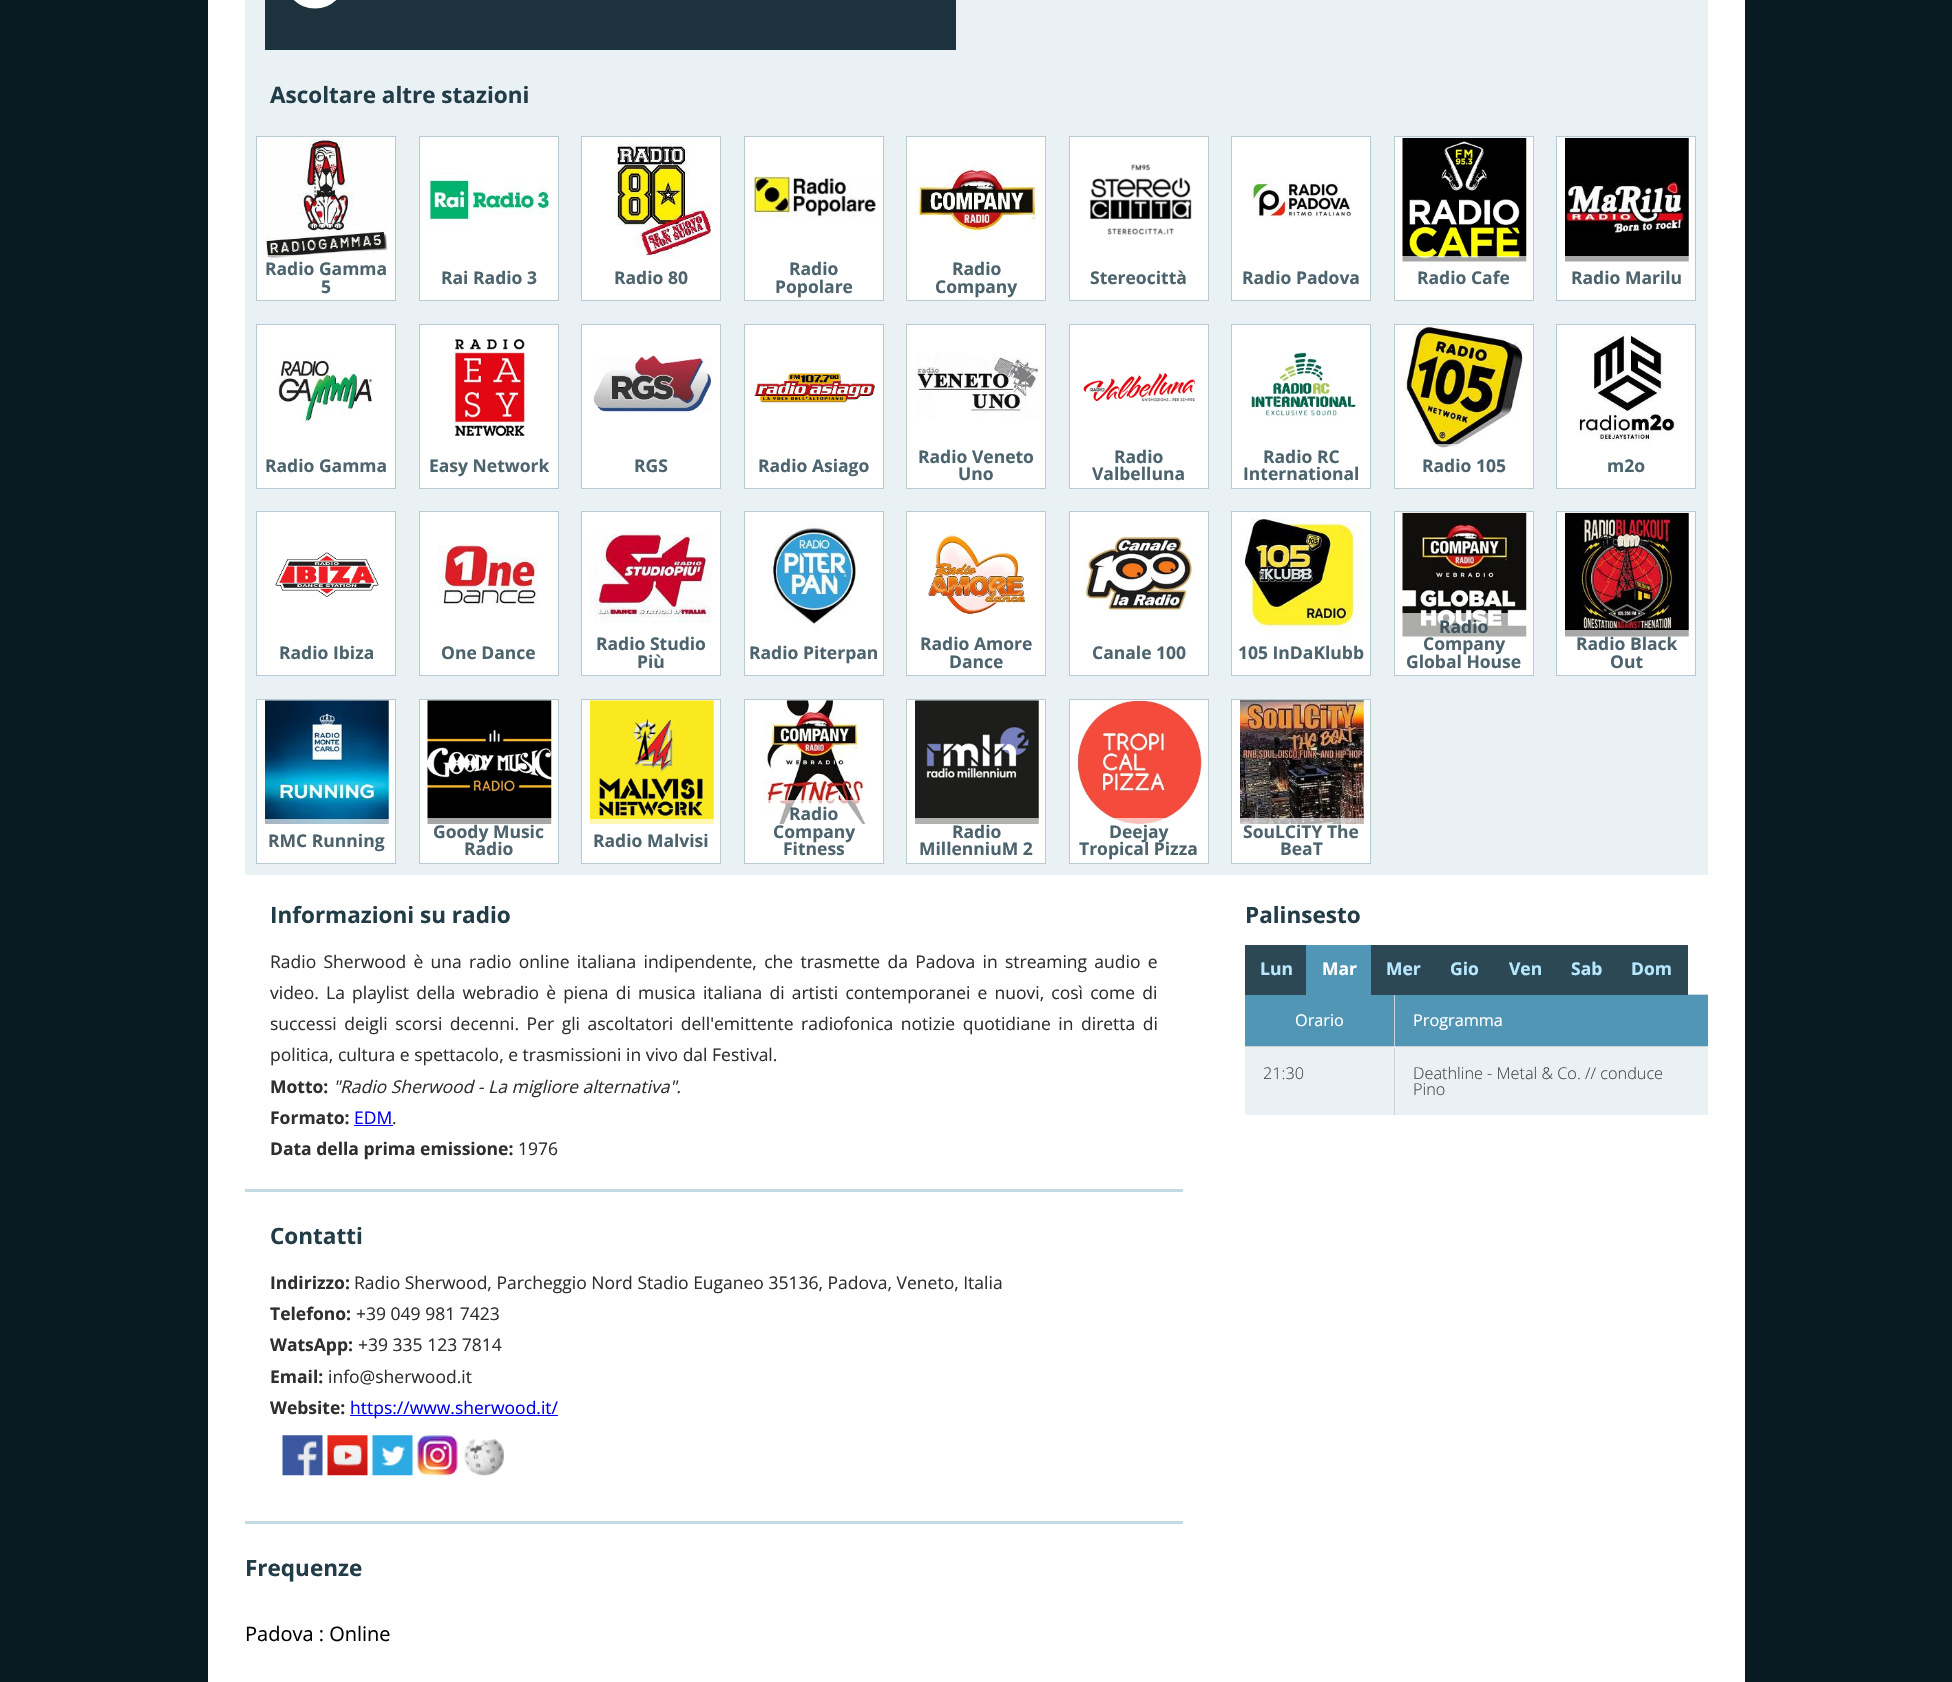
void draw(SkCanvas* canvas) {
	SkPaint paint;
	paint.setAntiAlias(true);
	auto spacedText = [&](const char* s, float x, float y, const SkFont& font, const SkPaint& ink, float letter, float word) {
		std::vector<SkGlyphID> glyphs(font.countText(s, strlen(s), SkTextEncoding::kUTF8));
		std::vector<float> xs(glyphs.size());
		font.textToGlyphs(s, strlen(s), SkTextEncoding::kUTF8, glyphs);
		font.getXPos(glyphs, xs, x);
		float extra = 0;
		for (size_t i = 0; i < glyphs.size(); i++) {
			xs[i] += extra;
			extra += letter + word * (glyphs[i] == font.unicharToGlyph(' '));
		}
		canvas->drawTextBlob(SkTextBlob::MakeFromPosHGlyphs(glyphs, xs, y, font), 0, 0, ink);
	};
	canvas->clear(0xff091a22);
	paint.setColor(0xffffffff);
	canvas->drawRect(SkRect::MakeXYWH(208, 0, 1537, 1682), paint);
	paint.setColor(0xffe9f1f4);
	canvas->drawRect(SkRect::MakeXYWH(245, 0, 1463, 875), paint);
	paint.setColor(0xff1c323c);
	canvas->drawRect(SkRect::MakeXYWH(265, 0, 691, 50), paint);
	paint.setColor(0xffffffff);
	canvas->drawCircle(315, -22.5, 31, paint);
	SkFont f1(fontMgr->matchFamilyStyle("Open Sans", SkFontStyle::Bold()), 22.5);
	f1.setSubpixel(true);
	paint.setColor(0xff223c48);
	canvas->drawString("Ascoltare altre stazioni", 270, 103, f1, paint);
	paint.setColor(0xffffffff);
	canvas->drawRect(SkRect::MakeXYWH(256.5, 136.5, 139, 164), paint);
	paint.setStroke(true);
	paint.setStrokeWidth(1);
	paint.setColor(0xffbacad3);
	canvas->drawRect(SkRect::MakeXYWH(256.5, 136.5, 139, 164), paint);
	canvas->drawImageRect(SkImages::DeferredFromEncodedData(SkData::MakeFromFileName("img1.png")), SkRect::MakeXYWH(265, 138, 123, 121), SkSamplingOptions());
	paint.setStroke(false);
	paint.setColor(0xa6ffffff);
	canvas->drawRect(SkRect::MakeXYWH(265, 255, 55, 4), paint);
	SkFont f2(fontMgr->matchFamilyStyle("Open Sans", SkFontStyle::Bold()), 17.5);
	f2.setSubpixel(true);
	paint.setColor(0xff4d646e);
	canvas->drawString("Radio Gamma", 265, 275, f2, paint);
	canvas->drawString("5", 321, 293, f2, paint);
	paint.setColor(0xffffffff);
	canvas->drawRect(SkRect::MakeXYWH(419.5, 136.5, 139, 164), paint);
	paint.setStroke(true);
	paint.setColor(0xffbacad3);
	canvas->drawRect(SkRect::MakeXYWH(419.5, 136.5, 139, 164), paint);
	canvas->drawImageRect(SkImages::DeferredFromEncodedData(SkData::MakeFromFileName("img2.png")), SkRect::MakeXYWH(427, 172, 123, 54), SkSamplingOptions());
	paint.setStroke(false);
	paint.setColor(0xff4d646e);
	canvas->drawString("Rai Radio 3", 441, 284, f2, paint);
	paint.setColor(0xffffffff);
	canvas->drawRect(SkRect::MakeXYWH(581.5, 136.5, 139, 164), paint);
	paint.setStroke(true);
	paint.setColor(0xffbacad3);
	canvas->drawRect(SkRect::MakeXYWH(581.5, 136.5, 139, 164), paint);
	canvas->drawImageRect(SkImages::DeferredFromEncodedData(SkData::MakeFromFileName("img3.png")), SkRect::MakeXYWH(612, 143, 100, 116), SkSamplingOptions());
	paint.setStroke(false);
	paint.setColor(0xa6ffffff);
	canvas->drawRect(SkRect::MakeXYWH(644, 256, 30, 3), paint);
	paint.setColor(0xff4d646e);
	canvas->drawString("Radio 80", 614, 284, f2, paint);
	paint.setColor(0xffffffff);
	canvas->drawRect(SkRect::MakeXYWH(744.5, 136.5, 139, 164), paint);
	paint.setStroke(true);
	paint.setColor(0xffbacad3);
	canvas->drawRect(SkRect::MakeXYWH(744.5, 136.5, 139, 164), paint);
	canvas->drawImageRect(SkImages::DeferredFromEncodedData(SkData::MakeFromFileName("img4.png")), SkRect::MakeXYWH(752, 175, 124, 43), SkSamplingOptions());
	paint.setStroke(false);
	paint.setColor(0xff4d646e);
	canvas->drawString("Radio", 789, 275, f2, paint);
	canvas->drawString("Popolare", 775, 293, f2, paint);
	paint.setColor(0xffffffff);
	canvas->drawRect(SkRect::MakeXYWH(906.5, 136.5, 139, 164), paint);
	paint.setStroke(true);
	paint.setColor(0xffbacad3);
	canvas->drawRect(SkRect::MakeXYWH(906.5, 136.5, 139, 164), paint);
	canvas->drawImageRect(SkImages::DeferredFromEncodedData(SkData::MakeFromFileName("img5.png")), SkRect::MakeXYWH(915, 160, 122, 77), SkSamplingOptions());
	paint.setStroke(false);
	paint.setColor(0xff4d646e);
	canvas->drawString("Radio", 952, 275, f2, paint);
	canvas->drawString("Company", 935, 293, f2, paint);
	paint.setColor(0xffffffff);
	canvas->drawRect(SkRect::MakeXYWH(1069.5, 136.5, 139, 164), paint);
	paint.setStroke(true);
	paint.setColor(0xffbacad3);
	canvas->drawRect(SkRect::MakeXYWH(1069.5, 136.5, 139, 164), paint);
	canvas->drawImageRect(SkImages::DeferredFromEncodedData(SkData::MakeFromFileName("img6.png")), SkRect::MakeXYWH(1089, 164, 103, 71), SkSamplingOptions());
	paint.setStroke(false);
	paint.setColor(0xff4d646e);
	canvas->drawString("Stereocittà", 1090, 284, f2, paint);
	paint.setColor(0xffffffff);
	canvas->drawRect(SkRect::MakeXYWH(1231.5, 136.5, 139, 164), paint);
	paint.setStroke(true);
	paint.setColor(0xffbacad3);
	canvas->drawRect(SkRect::MakeXYWH(1231.5, 136.5, 139, 164), paint);
	canvas->drawImageRect(SkImages::DeferredFromEncodedData(SkData::MakeFromFileName("img7.png")), SkRect::MakeXYWH(1248, 177, 103, 41), SkSamplingOptions());
	paint.setStroke(false);
	paint.setColor(0xff4d646e);
	canvas->drawString("Radio Padova", 1242, 284, f2, paint);
	paint.setColor(0xffffffff);
	canvas->drawRect(SkRect::MakeXYWH(1394.5, 136.5, 139, 164), paint);
	paint.setStroke(true);
	paint.setColor(0xffbacad3);
	canvas->drawRect(SkRect::MakeXYWH(1394.5, 136.5, 139, 164), paint);
	canvas->drawImageRect(SkImages::DeferredFromEncodedData(SkData::MakeFromFileName("img8.png")), SkRect::MakeXYWH(1402, 137, 125, 125), SkSamplingOptions());
	paint.setStroke(false);
	paint.setColor(0xa6ffffff);
	canvas->drawRect(SkRect::MakeXYWH(1402, 256, 125, 6), paint);
	paint.setColor(0xff4d646e);
	canvas->drawString("Radio Cafe", 1417, 284, f2, paint);
	paint.setColor(0xffffffff);
	canvas->drawRect(SkRect::MakeXYWH(1556.5, 136.5, 139, 164), paint);
	paint.setStroke(true);
	paint.setColor(0xffbacad3);
	canvas->drawRect(SkRect::MakeXYWH(1556.5, 136.5, 139, 164), paint);
	canvas->drawImageRect(SkImages::DeferredFromEncodedData(SkData::MakeFromFileName("img9.png")), SkRect::MakeXYWH(1565, 137, 124, 125), SkSamplingOptions());
	paint.setStroke(false);
	paint.setColor(0xa6ffffff);
	canvas->drawRect(SkRect::MakeXYWH(1565, 256, 124, 6), paint);
	paint.setColor(0xff4d646e);
	canvas->drawString("Radio Marilu", 1571, 284, f2, paint);
	paint.setColor(0xffffffff);
	canvas->drawRect(SkRect::MakeXYWH(256.5, 324.5, 139, 164), paint);
	paint.setStroke(true);
	paint.setColor(0xffbacad3);
	canvas->drawRect(SkRect::MakeXYWH(256.5, 324.5, 139, 164), paint);
	canvas->drawImageRect(SkImages::DeferredFromEncodedData(SkData::MakeFromFileName("img10.png")), SkRect::MakeXYWH(278, 359, 96, 65), SkSamplingOptions());
	paint.setStroke(false);
	paint.setColor(0xff4d646e);
	canvas->drawString("Radio Gamma", 265, 472, f2, paint);
	paint.setColor(0xffffffff);
	canvas->drawRect(SkRect::MakeXYWH(419.5, 324.5, 139, 164), paint);
	paint.setStroke(true);
	paint.setColor(0xffbacad3);
	canvas->drawRect(SkRect::MakeXYWH(419.5, 324.5, 139, 164), paint);
	canvas->drawImageRect(SkImages::DeferredFromEncodedData(SkData::MakeFromFileName("img11.png")), SkRect::MakeXYWH(454, 339, 72, 97), SkSamplingOptions());
	paint.setStroke(false);
	paint.setColor(0xff4d646e);
	canvas->drawString("Easy Network", 429, 472, f2, paint);
	paint.setColor(0xffffffff);
	canvas->drawRect(SkRect::MakeXYWH(581.5, 324.5, 139, 164), paint);
	paint.setStroke(true);
	paint.setColor(0xffbacad3);
	canvas->drawRect(SkRect::MakeXYWH(581.5, 324.5, 139, 164), paint);
	canvas->drawImageRect(SkImages::DeferredFromEncodedData(SkData::MakeFromFileName("img12.png")), SkRect::MakeXYWH(593, 355, 119, 58), SkSamplingOptions());
	paint.setStroke(false);
	paint.setColor(0xff4d646e);
	canvas->drawString("RGS", 634, 472, f2, paint);
	paint.setColor(0xffffffff);
	canvas->drawRect(SkRect::MakeXYWH(744.5, 324.5, 139, 164), paint);
	paint.setStroke(true);
	paint.setColor(0xffbacad3);
	canvas->drawRect(SkRect::MakeXYWH(744.5, 324.5, 139, 164), paint);
	canvas->drawImageRect(SkImages::DeferredFromEncodedData(SkData::MakeFromFileName("img13.png")), SkRect::MakeXYWH(753, 373, 123, 30), SkSamplingOptions());
	paint.setStroke(false);
	paint.setColor(0xff4d646e);
	canvas->drawString("Radio Asiago", 758, 472, f2, paint);
	paint.setColor(0xffffffff);
	canvas->drawRect(SkRect::MakeXYWH(906.5, 324.5, 139, 164), paint);
	paint.setStroke(true);
	paint.setColor(0xffbacad3);
	canvas->drawRect(SkRect::MakeXYWH(906.5, 324.5, 139, 164), paint);
	canvas->drawImageRect(SkImages::DeferredFromEncodedData(SkData::MakeFromFileName("img14.png")), SkRect::MakeXYWH(915, 352, 124, 68), SkSamplingOptions());
	paint.setStroke(false);
	paint.setColor(0xff4d646e);
	canvas->drawString("Radio Veneto", 918, 463, f2, paint);
	canvas->drawString("Uno", 958, 480, f2, paint);
	paint.setColor(0xffffffff);
	canvas->drawRect(SkRect::MakeXYWH(1069.5, 324.5, 139, 164), paint);
	paint.setStroke(true);
	paint.setColor(0xffbacad3);
	canvas->drawRect(SkRect::MakeXYWH(1069.5, 324.5, 139, 164), paint);
	canvas->drawImageRect(SkImages::DeferredFromEncodedData(SkData::MakeFromFileName("img15.png")), SkRect::MakeXYWH(1083, 372, 113, 30), SkSamplingOptions());
	paint.setStroke(false);
	paint.setColor(0xff4d646e);
	canvas->drawString("Radio", 1114, 463, f2, paint);
	canvas->drawString("Valbelluna", 1092, 480, f2, paint);
	paint.setColor(0xffffffff);
	canvas->drawRect(SkRect::MakeXYWH(1231.5, 324.5, 139, 164), paint);
	paint.setStroke(true);
	paint.setColor(0xffbacad3);
	canvas->drawRect(SkRect::MakeXYWH(1231.5, 324.5, 139, 164), paint);
	canvas->drawImageRect(SkImages::DeferredFromEncodedData(SkData::MakeFromFileName("img16.png")), SkRect::MakeXYWH(1250, 352, 106, 65), SkSamplingOptions());
	paint.setStroke(false);
	paint.setColor(0xff4d646e);
	canvas->drawString("Radio RC", 1263, 463, f2, paint);
	canvas->drawString("International", 1243, 480, f2, paint);
	paint.setColor(0xffffffff);
	canvas->drawRect(SkRect::MakeXYWH(1394.5, 324.5, 139, 164), paint);
	paint.setStroke(true);
	paint.setColor(0xffbacad3);
	canvas->drawRect(SkRect::MakeXYWH(1394.5, 324.5, 139, 164), paint);
	canvas->drawImageRect(SkImages::DeferredFromEncodedData(SkData::MakeFromFileName("img17.png")), SkRect::MakeXYWH(1402, 325, 121, 124), SkSamplingOptions());
	paint.setStroke(false);
	paint.setColor(0xa6ffffff);
	canvas->drawRect(SkRect::MakeXYWH(1430, 444, 35, 5), paint);
	paint.setColor(0xff4d646e);
	canvas->drawString("Radio 105", 1422, 472, f2, paint);
	paint.setColor(0xffffffff);
	canvas->drawRect(SkRect::MakeXYWH(1556.5, 324.5, 139, 164), paint);
	paint.setStroke(true);
	paint.setColor(0xffbacad3);
	canvas->drawRect(SkRect::MakeXYWH(1556.5, 324.5, 139, 164), paint);
	canvas->drawImageRect(SkImages::DeferredFromEncodedData(SkData::MakeFromFileName("img18.png")), SkRect::MakeXYWH(1576, 331, 99, 110), SkSamplingOptions());
	paint.setStroke(false);
	paint.setColor(0xff4d646e);
	canvas->drawString("m2o", 1607, 472, f2, paint);
	paint.setColor(0xffffffff);
	canvas->drawRect(SkRect::MakeXYWH(256.5, 511.5, 139, 164), paint);
	paint.setStroke(true);
	paint.setColor(0xffbacad3);
	canvas->drawRect(SkRect::MakeXYWH(256.5, 511.5, 139, 164), paint);
	canvas->drawImageRect(SkImages::DeferredFromEncodedData(SkData::MakeFromFileName("img19.png")), SkRect::MakeXYWH(275, 552, 104, 45), SkSamplingOptions());
	paint.setStroke(false);
	paint.setColor(0xff4d646e);
	canvas->drawString("Radio Ibiza", 279, 659, f2, paint);
	paint.setColor(0xffffffff);
	canvas->drawRect(SkRect::MakeXYWH(419.5, 511.5, 139, 164), paint);
	paint.setStroke(true);
	paint.setColor(0xffbacad3);
	canvas->drawRect(SkRect::MakeXYWH(419.5, 511.5, 139, 164), paint);
	canvas->drawImageRect(SkImages::DeferredFromEncodedData(SkData::MakeFromFileName("img20.png")), SkRect::MakeXYWH(438, 544, 100, 62), SkSamplingOptions());
	paint.setStroke(false);
	paint.setColor(0xff4d646e);
	canvas->drawString("One Dance", 441, 659, f2, paint);
	paint.setColor(0xffffffff);
	canvas->drawRect(SkRect::MakeXYWH(581.5, 511.5, 139, 164), paint);
	paint.setStroke(true);
	paint.setColor(0xffbacad3);
	canvas->drawRect(SkRect::MakeXYWH(581.5, 511.5, 139, 164), paint);
	canvas->drawImageRect(SkImages::DeferredFromEncodedData(SkData::MakeFromFileName("img21.png")), SkRect::MakeXYWH(590, 534, 122, 89), SkSamplingOptions());
	paint.setStroke(false);
	paint.setColor(0xff4d646e);
	canvas->drawString("Radio Studio", 596, 650, f2, paint);
	canvas->drawString("Più", 637, 668, f2, paint);
	paint.setColor(0xffffffff);
	canvas->drawRect(SkRect::MakeXYWH(744.5, 511.5, 139, 164), paint);
	paint.setStroke(true);
	paint.setColor(0xffbacad3);
	canvas->drawRect(SkRect::MakeXYWH(744.5, 511.5, 139, 164), paint);
	canvas->drawImageRect(SkImages::DeferredFromEncodedData(SkData::MakeFromFileName("img22.png")), SkRect::MakeXYWH(769, 524, 88, 103), SkSamplingOptions());
	paint.setStroke(false);
	paint.setColor(0xff4d646e);
	canvas->drawString("Radio Piterpan", 749, 659, f2, paint);
	paint.setColor(0xffffffff);
	canvas->drawRect(SkRect::MakeXYWH(906.5, 511.5, 139, 164), paint);
	paint.setStroke(true);
	paint.setColor(0xffbacad3);
	canvas->drawRect(SkRect::MakeXYWH(906.5, 511.5, 139, 164), paint);
	canvas->drawImageRect(SkImages::DeferredFromEncodedData(SkData::MakeFromFileName("img23.png")), SkRect::MakeXYWH(928, 534, 98, 81), SkSamplingOptions());
	paint.setStroke(false);
	paint.setColor(0xff4d646e);
	canvas->drawString("Radio Amore", 920, 650, f2, paint);
	canvas->drawString("Dance", 949, 668, f2, paint);
	paint.setColor(0xffffffff);
	canvas->drawRect(SkRect::MakeXYWH(1069.5, 511.5, 139, 164), paint);
	paint.setStroke(true);
	paint.setColor(0xffbacad3);
	canvas->drawRect(SkRect::MakeXYWH(1069.5, 511.5, 139, 164), paint);
	canvas->drawImageRect(SkImages::DeferredFromEncodedData(SkData::MakeFromFileName("img24.png")), SkRect::MakeXYWH(1085, 536, 109, 77), SkSamplingOptions());
	paint.setStroke(false);
	paint.setColor(0xff4d646e);
	canvas->drawString("Canale 100", 1092, 659, f2, paint);
	paint.setColor(0xffffffff);
	canvas->drawRect(SkRect::MakeXYWH(1231.5, 511.5, 139, 164), paint);
	paint.setStroke(true);
	paint.setColor(0xffbacad3);
	canvas->drawRect(SkRect::MakeXYWH(1231.5, 511.5, 139, 164), paint);
	canvas->drawImageRect(SkImages::DeferredFromEncodedData(SkData::MakeFromFileName("img25.png")), SkRect::MakeXYWH(1240, 518, 121, 116), SkSamplingOptions());
	paint.setStroke(false);
	paint.setColor(0xa6ffffff);
	canvas->drawRect(SkRect::MakeXYWH(1251, 631, 99, 3), paint);
	paint.setColor(0xff4d646e);
	canvas->drawString("105 InDaKlubb", 1238, 659, f2, paint);
	paint.setColor(0xffffffff);
	canvas->drawRect(SkRect::MakeXYWH(1394.5, 511.5, 139, 164), paint);
	paint.setStroke(true);
	paint.setColor(0xffbacad3);
	canvas->drawRect(SkRect::MakeXYWH(1394.5, 511.5, 139, 164), paint);
	canvas->drawImageRect(SkImages::DeferredFromEncodedData(SkData::MakeFromFileName("img26.png")), SkRect::MakeXYWH(1402, 512, 125, 125), SkSamplingOptions());
	paint.setStroke(false);
	paint.setColor(0xa6ffffff);
	canvas->drawRect(SkRect::MakeXYWH(1402, 613, 125, 24), paint);
	paint.setColor(0xff3e545e);
	canvas->drawString("Radio", 1439, 633, f2, paint);
	paint.setColor(0xff4d646e);
	canvas->drawString("Company", 1423, 650, f2, paint);
	canvas->drawString("Global House", 1406, 668, f2, paint);
	paint.setColor(0xffffffff);
	canvas->drawRect(SkRect::MakeXYWH(1556.5, 511.5, 139, 164), paint);
	paint.setStroke(true);
	paint.setColor(0xffbacad3);
	canvas->drawRect(SkRect::MakeXYWH(1556.5, 511.5, 139, 164), paint);
	canvas->drawImageRect(SkImages::DeferredFromEncodedData(SkData::MakeFromFileName("img27.png")), SkRect::MakeXYWH(1565, 512, 124, 125), SkSamplingOptions());
	paint.setStroke(false);
	paint.setColor(0xa6ffffff);
	canvas->drawRect(SkRect::MakeXYWH(1565, 630, 124, 7), paint);
	paint.setColor(0xff4d646e);
	canvas->drawString("Radio Black", 1576, 650, f2, paint);
	canvas->drawString("Out", 1610, 668, f2, paint);
	paint.setColor(0xffffffff);
	canvas->drawRect(SkRect::MakeXYWH(256.5, 699.5, 139, 164), paint);
	paint.setStroke(true);
	paint.setColor(0xffbacad3);
	canvas->drawRect(SkRect::MakeXYWH(256.5, 699.5, 139, 164), paint);
	canvas->drawImageRect(SkImages::DeferredFromEncodedData(SkData::MakeFromFileName("img28.png")), SkRect::MakeXYWH(265, 700, 124, 124), SkSamplingOptions());
	paint.setStroke(false);
	paint.setColor(0xa6ffffff);
	canvas->drawRect(SkRect::MakeXYWH(265, 819, 124, 5), paint);
	paint.setColor(0xff4d646e);
	canvas->drawString("RMC Running", 268, 847, f2, paint);
	paint.setColor(0xffffffff);
	canvas->drawRect(SkRect::MakeXYWH(419.5, 699.5, 139, 164), paint);
	paint.setStroke(true);
	paint.setColor(0xffbacad3);
	canvas->drawRect(SkRect::MakeXYWH(419.5, 699.5, 139, 164), paint);
	canvas->drawImageRect(SkImages::DeferredFromEncodedData(SkData::MakeFromFileName("img29.png")), SkRect::MakeXYWH(427, 700, 125, 124), SkSamplingOptions());
	paint.setStroke(false);
	paint.setColor(0xa6ffffff);
	canvas->drawRect(SkRect::MakeXYWH(427, 818, 125, 6), paint);
	paint.setColor(0xff4d646e);
	canvas->drawString("Goody Music", 433, 838, f2, paint);
	canvas->drawString("Radio", 464, 855, f2, paint);
	paint.setColor(0xffffffff);
	canvas->drawRect(SkRect::MakeXYWH(581.5, 699.5, 139, 164), paint);
	paint.setStroke(true);
	paint.setColor(0xffbacad3);
	canvas->drawRect(SkRect::MakeXYWH(581.5, 699.5, 139, 164), paint);
	canvas->drawImageRect(SkImages::DeferredFromEncodedData(SkData::MakeFromFileName("img30.png")), SkRect::MakeXYWH(590, 700, 124, 124), SkSamplingOptions());
	paint.setStroke(false);
	paint.setColor(0xa6ffffff);
	canvas->drawRect(SkRect::MakeXYWH(590, 819, 124, 5), paint);
	paint.setColor(0xff4d646e);
	canvas->drawString("Radio Malvisi", 593, 847, f2, paint);
	paint.setColor(0xffffffff);
	canvas->drawRect(SkRect::MakeXYWH(744.5, 699.5, 139, 164), paint);
	paint.setStroke(true);
	paint.setColor(0xffbacad3);
	canvas->drawRect(SkRect::MakeXYWH(744.5, 699.5, 139, 164), paint);
	canvas->drawImageRect(SkImages::DeferredFromEncodedData(SkData::MakeFromFileName("img31.png")), SkRect::MakeXYWH(763, 700, 105, 124), SkSamplingOptions());
	paint.setStroke(false);
	paint.setColor(0xa6ffffff);
	canvas->drawRect(SkRect::MakeXYWH(763, 800, 105, 24), paint);
	paint.setColor(0xff4d646e);
	canvas->drawString("Radio", 789, 820, f2, paint);
	canvas->drawString("Company", 773, 838, f2, paint);
	canvas->drawString("Fitness", 783, 855, f2, paint);
	paint.setColor(0xffffffff);
	canvas->drawRect(SkRect::MakeXYWH(906.5, 699.5, 139, 164), paint);
	paint.setStroke(true);
	paint.setColor(0xffbacad3);
	canvas->drawRect(SkRect::MakeXYWH(906.5, 699.5, 139, 164), paint);
	canvas->drawImageRect(SkImages::DeferredFromEncodedData(SkData::MakeFromFileName("img32.png")), SkRect::MakeXYWH(915, 700, 124, 124), SkSamplingOptions());
	paint.setStroke(false);
	paint.setColor(0xa6ffffff);
	canvas->drawRect(SkRect::MakeXYWH(915, 818, 124, 6), paint);
	paint.setColor(0xff4d646e);
	canvas->drawString("Radio", 952, 838, f2, paint);
	canvas->drawString("MillenniuM 2", 919, 855, f2, paint);
	paint.setColor(0xffffffff);
	canvas->drawRect(SkRect::MakeXYWH(1069.5, 699.5, 139, 164), paint);
	paint.setStroke(true);
	paint.setColor(0xffbacad3);
	canvas->drawRect(SkRect::MakeXYWH(1069.5, 699.5, 139, 164), paint);
	canvas->drawImageRect(SkImages::DeferredFromEncodedData(SkData::MakeFromFileName("img33.png")), SkRect::MakeXYWH(1077, 700, 125, 124), SkSamplingOptions());
	paint.setStroke(false);
	paint.setColor(0xa6ffffff);
	canvas->drawRect(SkRect::MakeXYWH(1111, 818, 56, 6), paint);
	paint.setColor(0xff4d646e);
	canvas->drawString("Deejay", 1109, 838, f2, paint);
	canvas->drawString("Tropical Pizza", 1079, 855, f2, paint);
	paint.setColor(0xffffffff);
	canvas->drawRect(SkRect::MakeXYWH(1231.5, 699.5, 139, 164), paint);
	paint.setStroke(true);
	paint.setColor(0xffbacad3);
	canvas->drawRect(SkRect::MakeXYWH(1231.5, 699.5, 139, 164), paint);
	canvas->drawImageRect(SkImages::DeferredFromEncodedData(SkData::MakeFromFileName("img34.png")), SkRect::MakeXYWH(1240, 700, 124, 124), SkSamplingOptions());
	paint.setStroke(false);
	paint.setColor(0xa6ffffff);
	canvas->drawRect(SkRect::MakeXYWH(1240, 818, 124, 6), paint);
	paint.setColor(0xff4d646e);
	canvas->drawString("SouLCiTY The", 1243, 838, f2, paint);
	canvas->drawString("BeaT", 1280, 855, f2, paint);
	paint.setColor(0xffc4dae2);
	canvas->drawRect(SkRect::MakeXYWH(245, 1189, 938, 3), paint);
	paint.setColor(0xff223c48);
	canvas->drawString("Informazioni su radio", 270, 923, f1, paint);
	SkFont f3(fontMgr->matchFamilyStyle("Open Sans", SkFontStyle::Normal()), 17.5);
	f3.setSubpixel(true);
	paint.setColor(0xff2f2f2f);
	spacedText("Radio Sherwood è una radio online italiana indipendente, che trasmette da Padova in streaming audio e", 270, 968, f3, paint, 0, 2.75);
	canvas->drawString("video.", 270, 999, f3, paint);
	spacedText("La playlist della webradio è piena di musica italiana di artisti contemporanei e nuovi, così come di", 326, 999, f3, paint, 0, 2.6);
	spacedText("successi deigli scorsi decenni. Per gli ascoltatori dell'emittente radiofonica notizie quotidiane in diretta di", 270, 1030, f3, paint, 0, 3);
	canvas->drawString("politica, cultura e spettacolo, e trasmissioni in vivo dal Festival.", 270, 1061, f3, paint);
	canvas->drawString("Motto:", 270, 1093, f2, paint);
	SkFont f4(fontMgr->matchFamilyStyle("Open Sans", SkFontStyle::Italic()), 17.5);
	f4.setSubpixel(true);
	canvas->drawString("\"Radio Sherwood - La migliore alternativa\".", 333, 1093, f4, paint);
	canvas->drawString("Formato:", 270, 1124, f2, paint);
	paint.setColor(0xff0000ee);
	canvas->drawString("EDM", 354, 1124, f3, paint);
	paint.setColor(0xff2f2f2f);
	canvas->drawString(".", 392, 1124, f3, paint);
	paint.setColor(0xff0000ee);
	canvas->drawRect(SkRect::MakeXYWH(354, 1125, 39, 1), paint);
	paint.setColor(0xff2f2f2f);
	canvas->drawString("Data della prima emissione:", 270, 1155, f2, paint);
	canvas->drawString("1976", 518, 1155, f3, paint);
	paint.setColor(0xffc4dae2);
	canvas->drawRect(SkRect::MakeXYWH(245, 1521, 938, 3), paint);
	paint.setColor(0xff223c48);
	canvas->drawString("Contatti", 270, 1244, f1, paint);
	paint.setColor(0xff2f2f2f);
	canvas->drawString("Indirizzo:", 270, 1289, f2, paint);
	canvas->drawString("Radio Sherwood, Parcheggio Nord Stadio Euganeo 35136, Padova, Veneto, Italia", 354, 1289, f3, paint);
	canvas->drawString("Telefono:", 270, 1320, f2, paint);
	canvas->drawString("+39 049 981 7423", 356, 1320, f3, paint);
	canvas->drawString("WatsApp:", 270, 1351, f2, paint);
	canvas->drawString("+39 335 123 7814", 358, 1351, f3, paint);
	canvas->drawString("Email:", 270, 1383, f2, paint);
	canvas->drawString("info@sherwood.it", 328, 1383, f3, paint);
	canvas->drawString("Website:", 270, 1414, f2, paint);
	paint.setColor(0xff0000ee);
	canvas->drawRect(SkRect::MakeXYWH(350, 1415, 208, 1), paint);
	canvas->drawString("https://www.sherwood.it/", 350, 1414, f3, paint);
	canvas->drawImageRect(SkImages::DeferredFromEncodedData(SkData::MakeFromFileName("img35.png")), SkRect::MakeXYWH(282, 1435, 41, 41), SkSamplingOptions());
	canvas->drawImageRect(SkImages::DeferredFromEncodedData(SkData::MakeFromFileName("img36.png")), SkRect::MakeXYWH(327, 1435, 41, 41), SkSamplingOptions());
	canvas->drawImageRect(SkImages::DeferredFromEncodedData(SkData::MakeFromFileName("img37.png")), SkRect::MakeXYWH(372, 1435, 41, 41), SkSamplingOptions());
	canvas->drawImageRect(SkImages::DeferredFromEncodedData(SkData::MakeFromFileName("img38.png")), SkRect::MakeXYWH(417, 1435, 41, 41), SkSamplingOptions());
	canvas->drawImageRect(SkImages::DeferredFromEncodedData(SkData::MakeFromFileName("img39.png")), SkRect::MakeXYWH(463, 1439, 41, 37), SkSamplingOptions());
	paint.setColor(0xff223c48);
	canvas->drawString("Palinsesto", 1245, 923, f1, paint);
	paint.setColor(0xff2d4855);
	canvas->drawRect(SkRect::MakeXYWH(1245, 945, 61, 50), paint);
	paint.setColor(0xffb7e8ff);
	canvas->drawString("Lun", 1260, 975, f2, paint);
	paint.setColor(0xff5296b6);
	canvas->drawRect(SkRect::MakeXYWH(1306, 945, 65, 50), paint);
	paint.setColor(0xffffffff);
	canvas->drawString("Mar", 1322, 975, f2, paint);
	paint.setColor(0xff2d4855);
	canvas->drawRect(SkRect::MakeXYWH(1371, 945, 317, 50), paint);
	paint.setColor(0xffb7e8ff);
	canvas->drawString("Mer", 1386, 975, f2, paint);
	canvas->drawString("Gio", 1450, 975, f2, paint);
	canvas->drawString("Ven", 1509, 975, f2, paint);
	canvas->drawString("Sab", 1571, 975, f2, paint);
	canvas->drawString("Dom", 1631, 975, f2, paint);
	paint.setColor(0xff5296b6);
	canvas->drawRect(SkRect::MakeXYWH(1245, 995, 463, 51), paint);
	paint.setColor(0xffc9d3d8);
	canvas->drawRect(SkRect::MakeXYWH(1688, 994, 20, 1), paint);
	canvas->drawRect(SkRect::MakeXYWH(1394, 995, 1, 51), paint);
	SkFont f5(fontMgr->matchFamilyStyle("Open Sans", SkFontStyle::Normal()), 16.25);
	f5.setSubpixel(true);
	paint.setColor(0xffffffff);
	canvas->drawString("Orario", 1295, 1026, f5, paint);
	canvas->drawString("Programma", 1413, 1026, f5, paint);
	paint.setColor(0xffe9f1f4);
	canvas->drawRect(SkRect::MakeXYWH(1245, 1047, 463, 68), paint);
	paint.setColor(0xffc9d3d8);
	canvas->drawRect(SkRect::MakeXYWH(1245, 1046, 463, 1), paint);
	canvas->drawRect(SkRect::MakeXYWH(1394, 1048, 1, 67), paint);
	SkFont f6(fontMgr->matchFamilyStyle("Open Sans", SkFontStyle(300, SkFontStyle::kNormal_Width, SkFontStyle::kUpright_Slant)), 16.25);
	f6.setSubpixel(true);
	paint.setColor(0xff464646);
	canvas->drawString("21:30", 1263, 1079, f6, paint);
	canvas->drawString("Deathline - Metal & Co. // conduce", 1413, 1079, f6, paint);
	canvas->drawString("Pino", 1413, 1095, f6, paint);
	paint.setColor(0xff223c48);
	canvas->drawString("Frequenze", 245, 1576, f1, paint);
	SkFont f7(fontMgr->matchFamilyStyle("Open Sans", SkFontStyle::Normal()), 20);
	f7.setSubpixel(true);
	paint.setColor(0xff000000);
	canvas->drawString("Padova : Online", 245, 1641, f7, paint);
}
